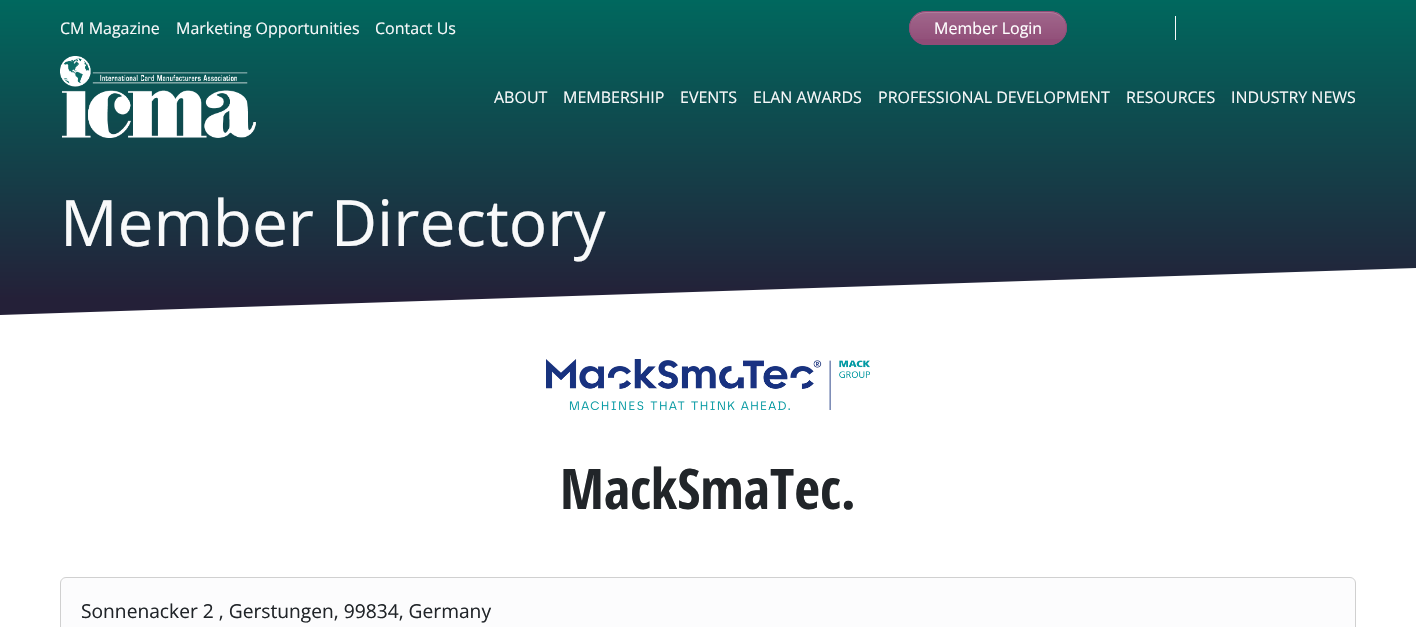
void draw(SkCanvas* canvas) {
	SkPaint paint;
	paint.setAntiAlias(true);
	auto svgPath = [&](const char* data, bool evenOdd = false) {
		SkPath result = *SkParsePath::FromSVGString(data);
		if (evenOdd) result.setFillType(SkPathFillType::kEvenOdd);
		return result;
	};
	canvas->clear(0xffffffff);
	{
		const SkColor colors[] = {0xff00685e, 0xff242038};
		const float stops[] = {0, 0.95};
		const SkPoint ends[] = {{708, 0}, {708, 315}};
		paint.setShader(SkGradientShader::MakeLinear(ends, colors, stops, 2, SkTileMode::kClamp));
		paint.setAlpha(255);
	}
	canvas->drawPath(svgPath("M0 0V315L1416 268V0Z"), paint);
	SkFont f1(fontMgr->matchFamilyStyle("Open Sans", SkFontStyle::Normal()), 16);
	f1.setSubpixel(true);
	paint.setShader(nullptr);
	paint.setColor(0xfff8f9fa);
	canvas->drawString("CM Magazine", 60, 34, f1, paint);
	canvas->drawString("Marketing Opportunities", 176, 34, f1, paint);
	canvas->drawString("Contact Us", 375, 34, f1, paint);
	paint.setColor(0xff904c77);
	canvas->drawRoundRect(SkRect::MakeXYWH(909, 11, 158, 34), 17, 17, paint);
	canvas->save();
	canvas->clipPath(svgPath("M926 11H1050C1059.5 11 1067 18.5 1067 28C1067 37.5 1059.5 45 1050 45H926C916.5 45 909 37.5 909 28C909 18.5 916.5 11 926 11Z"), true);
	{
		const SkColor colors[] = {0x26ffffff, 0x00ffffff};
		const float stops[] = {0, 1};
		const SkPoint ends[] = {{988, 12}, {988, 44}};
		paint.setShader(SkGradientShader::MakeLinear(ends, colors, stops, 2, SkTileMode::kClamp));
		paint.setAlpha(255);
	}
	canvas->drawRect(SkRect::MakeXYWH(909, 12, 158, 27), paint);
	canvas->restore();
	paint.setShader(nullptr);
	paint.setColor(0x26ffffff);
	canvas->drawPath(svgPath("M926 13H1050C1059 13 1066 20 1066 28C1066 19 1059 12 1050 12H926C917 12 910 19 910 28C910 20 917 13 926 13Z"), paint);
	paint.setStroke(true);
	paint.setStrokeWidth(1);
	paint.setColor(0xff904c77);
	canvas->drawRoundRect(SkRect::MakeXYWH(909.5, 11.5, 157, 33), 16.5, 16.5, paint);
	paint.setStroke(false);
	paint.setColor(0xffffffff);
	canvas->drawString("Member Login", 934, 34, f1, paint);
	paint.setColor(0xfff8f9fa);
	canvas->drawRect(SkRect::MakeXYWH(1175, 16, 1, 24), paint);
	canvas->drawImageRect(SkImages::DeferredFromEncodedData(SkData::MakeFromFileName("img1.png")), SkRect::MakeXYWH(60, 56, 196, 82), SkSamplingOptions());
	canvas->drawString("ABOUT", 494, 103, f1, paint);
	canvas->drawString("MEMBERSHIP", 563, 103, f1, paint);
	canvas->drawString("EVENTS", 680, 103, f1, paint);
	canvas->drawString("ELAN AWARDS", 753, 103, f1, paint);
	canvas->drawString("PROFESSIONAL DEVELOPMENT", 878, 103, f1, paint);
	canvas->drawString("RESOURCES", 1126, 103, f1, paint);
	canvas->drawString("INDUSTRY NEWS", 1231, 103, f1, paint);
	SkFont f2(fontMgr->matchFamilyStyle("Open Sans", SkFontStyle::Normal()), 64);
	f2.setSubpixel(true);
	canvas->drawString("Member Directory", 60, 246, f2, paint);
	canvas->drawImageRect(SkImages::DeferredFromEncodedData(SkData::MakeFromFileName("img2.png")), SkRect::MakeXYWH(546, 359, 324, 51), SkSamplingOptions());
	SkFont f3(fontMgr->matchFamilyStyle("Open Sans Condensed", SkFontStyle::Bold()), 56);
	f3.setSubpixel(true);
	paint.setColor(0xff212529);
	canvas->drawString("MackSmaTec.", 560, 509, f3, paint);
	paint.setColor(0xfffcfcfd);
	canvas->drawRoundRect(SkRect::MakeXYWH(60.5, 577.5, 1295, 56), 5.5, 5.5, paint);
	paint.setStroke(true);
	paint.setColor(0xffd0d0d0);
	canvas->drawRoundRect(SkRect::MakeXYWH(60.5, 577.5, 1295, 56), 5.5, 5.5, paint);
	SkFont f4(fontMgr->matchFamilyStyle("Open Sans", SkFontStyle::Normal()), 19.2);
	f4.setSubpixel(true);
	paint.setStroke(false);
	paint.setColor(0xff212529);
	canvas->drawString("Sonnenacker 2 , Gerstungen, 99834, Germany", 81, 618, f4, paint);
}
